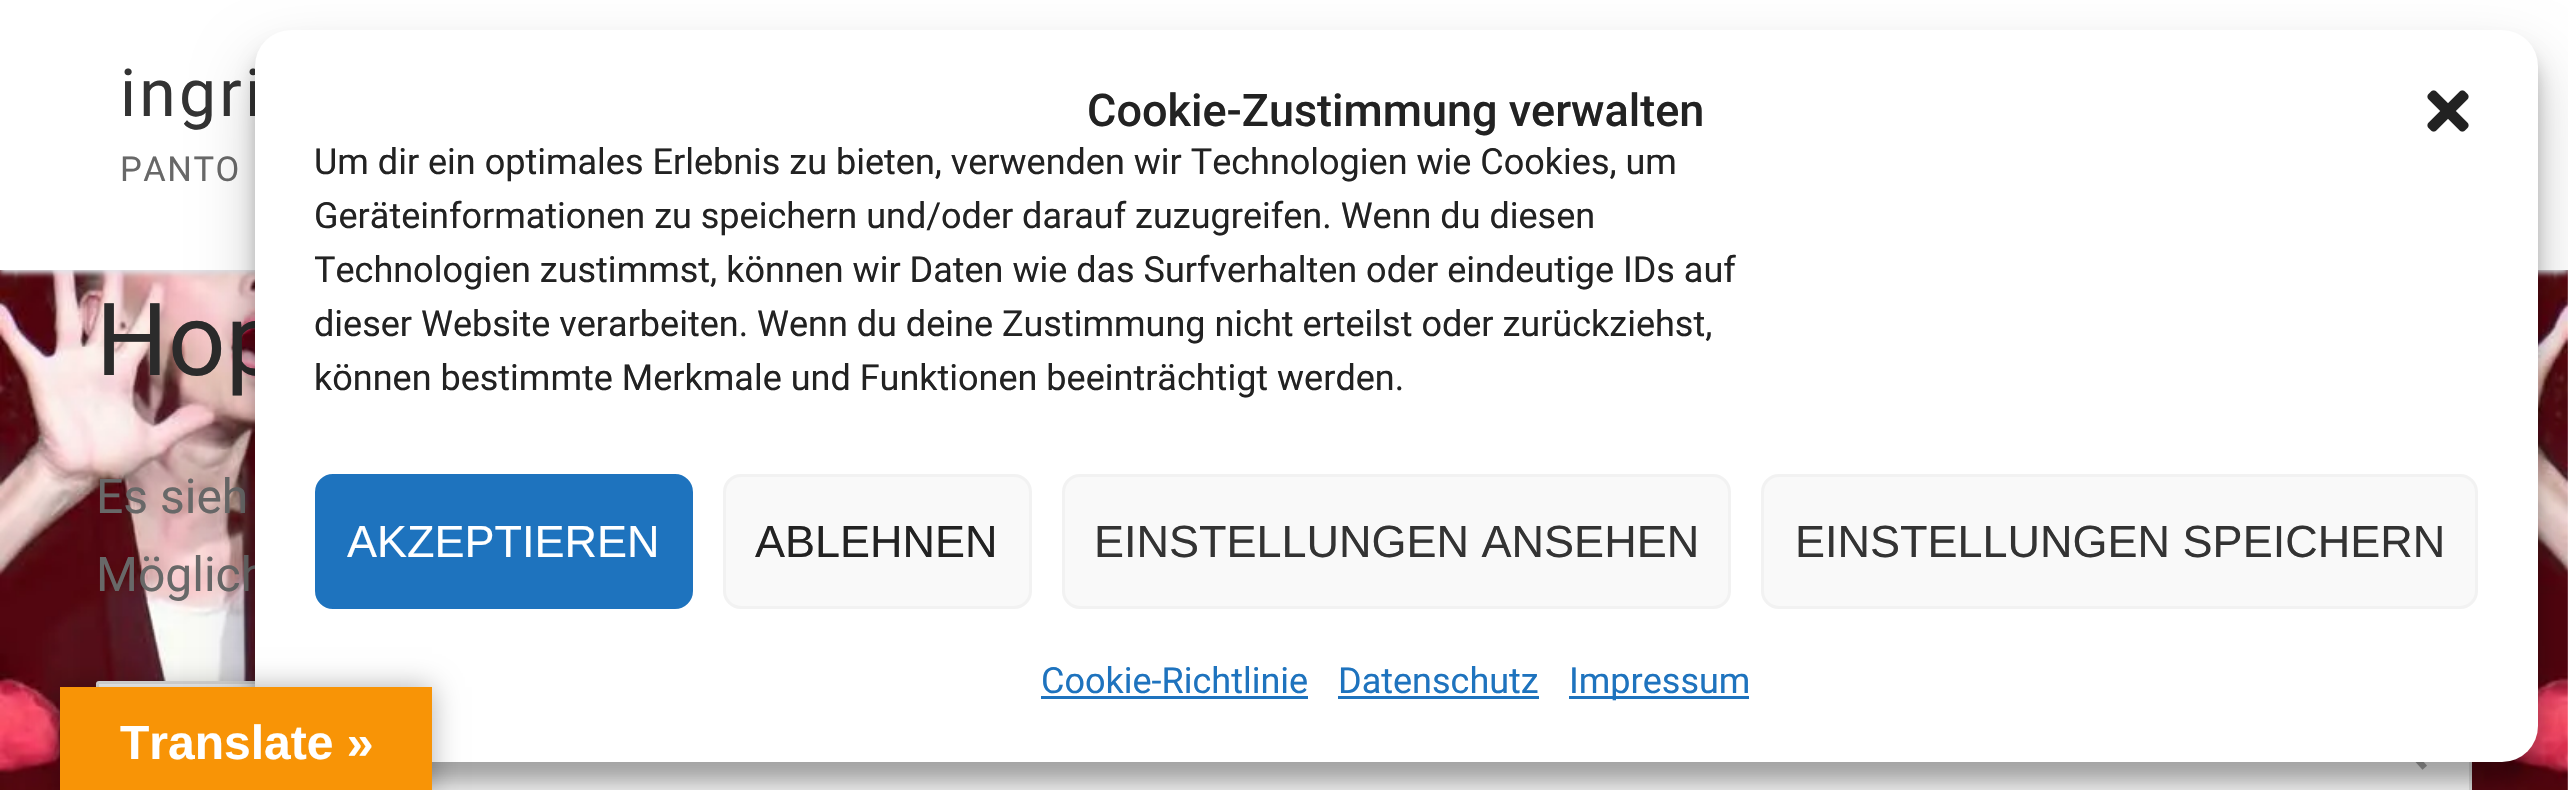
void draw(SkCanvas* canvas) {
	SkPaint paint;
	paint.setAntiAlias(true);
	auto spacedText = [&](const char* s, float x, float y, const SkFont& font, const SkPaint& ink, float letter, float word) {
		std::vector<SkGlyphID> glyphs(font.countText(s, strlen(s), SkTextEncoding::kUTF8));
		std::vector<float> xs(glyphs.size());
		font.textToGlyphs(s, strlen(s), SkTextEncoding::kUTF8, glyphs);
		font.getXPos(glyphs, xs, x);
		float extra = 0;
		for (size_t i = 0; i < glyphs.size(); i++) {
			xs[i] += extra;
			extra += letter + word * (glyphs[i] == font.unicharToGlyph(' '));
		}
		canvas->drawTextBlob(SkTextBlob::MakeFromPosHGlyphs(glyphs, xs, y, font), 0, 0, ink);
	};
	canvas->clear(0xffffffff);
	canvas->drawImageRect(SkImages::DeferredFromEncodedData(SkData::MakeFromFileName("img1.png")), SkRect::MakeXYWH(0, 270, 2568, 520), SkSamplingOptions());
	paint.setColor(0xffe1e5ea);
	paint.setMaskFilter(SkMaskFilter::MakeBlur(kNormal_SkBlurStyle, 3));
	canvas->drawRect(SkRect::MakeXYWH(0, 3, 2568, 270), paint);
	paint.setMaskFilter(nullptr);
	paint.setColor(0xffffffff);
	canvas->drawRect(SkRect::MakeXYWH(0, 0, 2568, 270), paint);
	SkFont f1(fontMgr->matchFamilyStyle("Roboto", SkFontStyle::Normal()), 66);
	f1.setSubpixel(true);
	paint.setColor(0xff333333);
	spacedText("ingri", 120, 116, f1, paint, 3.25, 0);
	SkFont f2(fontMgr->matchFamilyStyle("Roboto", SkFontStyle::Normal()), 34.5);
	f2.setSubpixel(true);
	paint.setColor(0xff686868);
	spacedText("PANTO", 120, 181, f2, paint, 1.5, 0);
	SkFont f3(fontMgr->matchFamilyStyle("Roboto", SkFontStyle::Normal()), 101);
	f3.setSubpixel(true);
	paint.setColor(0xff2b2b2b);
	canvas->drawString("Hop", 96, 375, f3, paint);
	SkFont f4(fontMgr->matchFamilyStyle("Roboto", SkFontStyle::Normal()), 48);
	f4.setSubpixel(true);
	paint.setColor(0xff686868);
	canvas->drawString("Es sieh", 96, 513, f4, paint);
	canvas->drawString("Möglich", 96, 591, f4, paint);
	paint.setColor(0xffffffff);
	canvas->drawRoundRect(SkRect::MakeXYWH(97.5, 682.5, 2373, 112), 1.5, 1.5, paint);
	paint.setStroke(true);
	paint.setStrokeWidth(3);
	paint.setColor(0xffe5e5e5);
	canvas->drawRoundRect(SkRect::MakeXYWH(97.5, 682.5, 2373, 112), 1.5, 1.5, paint);
	canvas->drawImageRect(SkImages::DeferredFromEncodedData(SkData::MakeFromFileName("img2.png")), SkRect::MakeXYWH(2415, 762, 12, 8), SkSamplingOptions());
	paint.setStroke(false);
	paint.setColor(0x3b000000);
	paint.setMaskFilter(SkMaskFilter::MakeBlur(kNormal_SkBlurStyle, 9));
	canvas->drawRoundRect(SkRect::MakeXYWH(255, 48, 2283, 732), 36, 36, paint);
	paint.setMaskFilter(nullptr);
	paint.setColor(0x30000000);
	paint.setMaskFilter(SkMaskFilter::MakeBlur(kNormal_SkBlurStyle, 30));
	canvas->drawRoundRect(SkRect::MakeXYWH(255, 60, 2283, 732), 36, 36, paint);
	paint.setMaskFilter(nullptr);
	paint.setColor(0xffffffff);
	canvas->drawRoundRect(SkRect::MakeXYWH(255, 30, 2283, 732), 36, 36, paint);
	SkFont f5(fontMgr->matchFamilyStyle("Roboto", SkFontStyle(500, SkFontStyle::kNormal_Width, SkFontStyle::kUpright_Slant)), 45);
	f5.setSubpixel(true);
	paint.setColor(0xff222222);
	canvas->drawString("Cookie-Zustimmung verwalten", 1087, 126, f5, paint);
	canvas->drawImageRect(SkImages::DeferredFromEncodedData(SkData::MakeFromFileName("img3.png")), SkRect::MakeXYWH(2427, 90, 42, 42), SkSamplingOptions());
	SkFont f6(fontMgr->matchFamilyStyle("Roboto", SkFontStyle::Normal()), 36);
	f6.setSubpixel(true);
	canvas->drawString("Um dir ein optimales Erlebnis zu bieten, verwenden wir Technologien wie Cookies, um", 314, 174, f6, paint);
	canvas->drawString("Geräteinformationen zu speichern und/oder darauf zuzugreifen. Wenn du diesen", 314, 228, f6, paint);
	canvas->save();
	canvas->clipRect(SkRect::MakeXYWH(315, 135, 2163, 279));
	canvas->drawString("Technologien zustimmst, können wir Daten wie das Surfverhalten oder eindeutige IDs auf", 314, 282, f6, paint);
	canvas->restore();
	canvas->drawString("dieser Website verarbeiten. Wenn du deine Zustimmung nicht erteilst oder zurückziehst,", 314, 336, f6, paint);
	canvas->drawString("können bestimmte Merkmale und Funktionen beeinträchtigt werden.", 314, 390, f6, paint);
	paint.setColor(0xff1e73be);
	canvas->drawRoundRect(SkRect::MakeXYWH(316.5, 475.5, 375, 132), 16.5, 16.5, paint);
	paint.setStroke(true);
	canvas->drawRoundRect(SkRect::MakeXYWH(316.5, 475.5, 375, 132), 16.5, 16.5, paint);
	SkFont f7(fontMgr->matchFamilyStyle("Liberation Sans", SkFontStyle::Normal()), 45);
	f7.setSubpixel(true);
	paint.setStroke(false);
	paint.setColor(0xffffffff);
	canvas->drawString("AKZEPTIEREN", 347, 557, f7, paint);
	paint.setColor(0xfff9f9f9);
	canvas->drawRoundRect(SkRect::MakeXYWH(724.5, 475.5, 306, 132), 16.5, 16.5, paint);
	paint.setStroke(true);
	paint.setColor(0xfff2f2f2);
	canvas->drawRoundRect(SkRect::MakeXYWH(724.5, 475.5, 306, 132), 16.5, 16.5, paint);
	paint.setStroke(false);
	paint.setColor(0xff222222);
	canvas->drawString("ABLEHNEN", 755, 557, f7, paint);
	paint.setColor(0xfff9f9f9);
	canvas->drawRoundRect(SkRect::MakeXYWH(1063.5, 475.5, 666, 132), 16.5, 16.5, paint);
	paint.setStroke(true);
	paint.setColor(0xfff2f2f2);
	canvas->drawRoundRect(SkRect::MakeXYWH(1063.5, 475.5, 666, 132), 16.5, 16.5, paint);
	paint.setStroke(false);
	paint.setColor(0xff333333);
	canvas->drawString("EINSTELLUNGEN ANSEHEN", 1094, 557, f7, paint);
	paint.setColor(0xfff9f9f9);
	canvas->drawRoundRect(SkRect::MakeXYWH(1762.5, 475.5, 714, 132), 16.5, 16.5, paint);
	paint.setStroke(true);
	paint.setColor(0xfff2f2f2);
	canvas->drawRoundRect(SkRect::MakeXYWH(1762.5, 475.5, 714, 132), 16.5, 16.5, paint);
	paint.setStroke(false);
	paint.setColor(0xff333333);
	canvas->drawString("EINSTELLUNGEN SPEICHERN", 1795, 557, f7, paint);
	paint.setColor(0xff1e73be);
	canvas->drawString("Cookie-Richtlinie", 1041, 693, f6, paint);
	canvas->drawRect(SkRect::MakeXYWH(1041, 696, 267, 3), paint);
	canvas->drawString("Datenschutz", 1338, 693, f6, paint);
	canvas->drawRect(SkRect::MakeXYWH(1338, 696, 201, 3), paint);
	canvas->drawRect(SkRect::MakeXYWH(1569, 696, 180, 3), paint);
	canvas->drawString("Impressum", 1569, 693, f6, paint);
	paint.setColor(0x4d000000);
	paint.setMaskFilter(SkMaskFilter::MakeBlur(kNormal_SkBlurStyle, 13.5));
	canvas->drawRect(SkRect::MakeXYWH(60, 687, 372, 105), paint);
	paint.setMaskFilter(nullptr);
	paint.setColor(0xfff89406);
	canvas->drawRect(SkRect::MakeXYWH(60, 687, 372, 103), paint);
	SkFont f8(fontMgr->matchFamilyStyle("Liberation Sans", SkFontStyle::Bold()), 48);
	f8.setSubpixel(true);
	paint.setColor(0xffffffff);
	canvas->drawString("Translate »", 120, 759, f8, paint);
}
